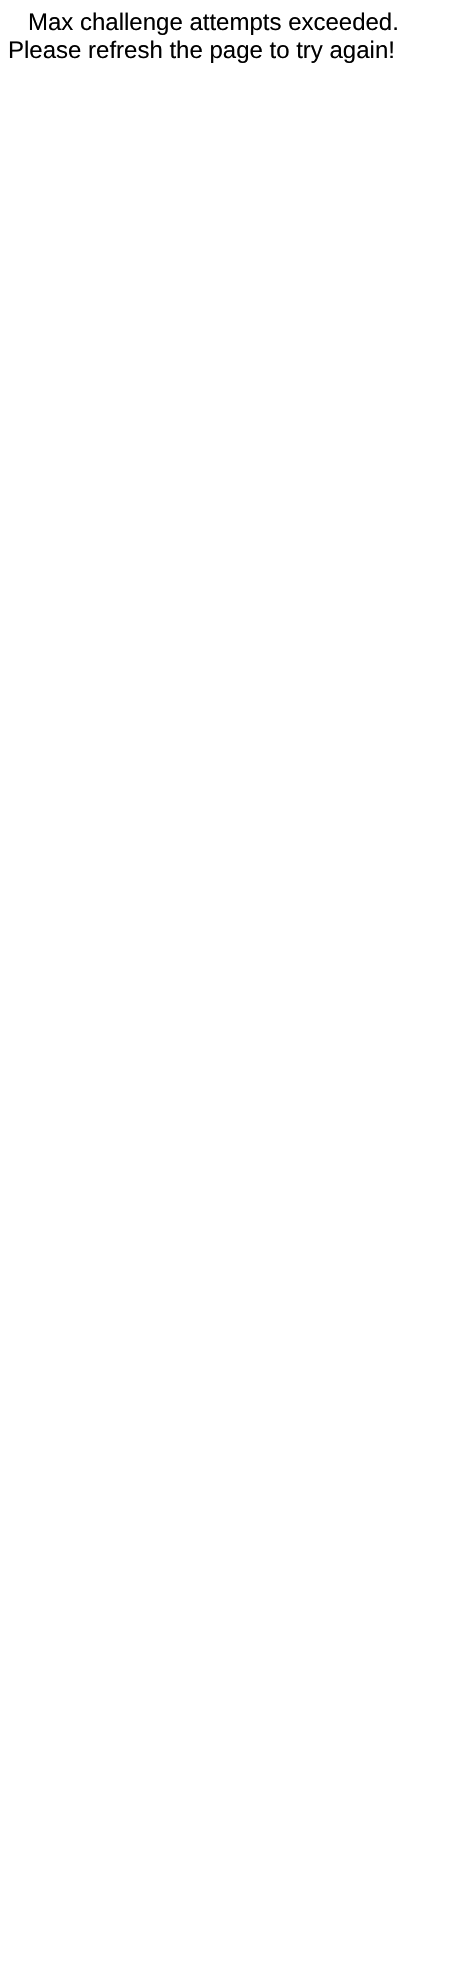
void draw(SkCanvas* canvas) {
	SkPaint paint;
	paint.setAntiAlias(true);
	canvas->clear(0xffffffff);
	SkFont f1(fontMgr->matchFamilyStyle("Liberation Sans", SkFontStyle::Normal()), 24);
	f1.setSubpixel(true);
	paint.setColor(0xff000000);
	canvas->drawString("Max challenge attempts exceeded.", 28, 30, f1, paint);
	canvas->drawString("Please refresh the page to try again!", 8, 58, f1, paint);
}
